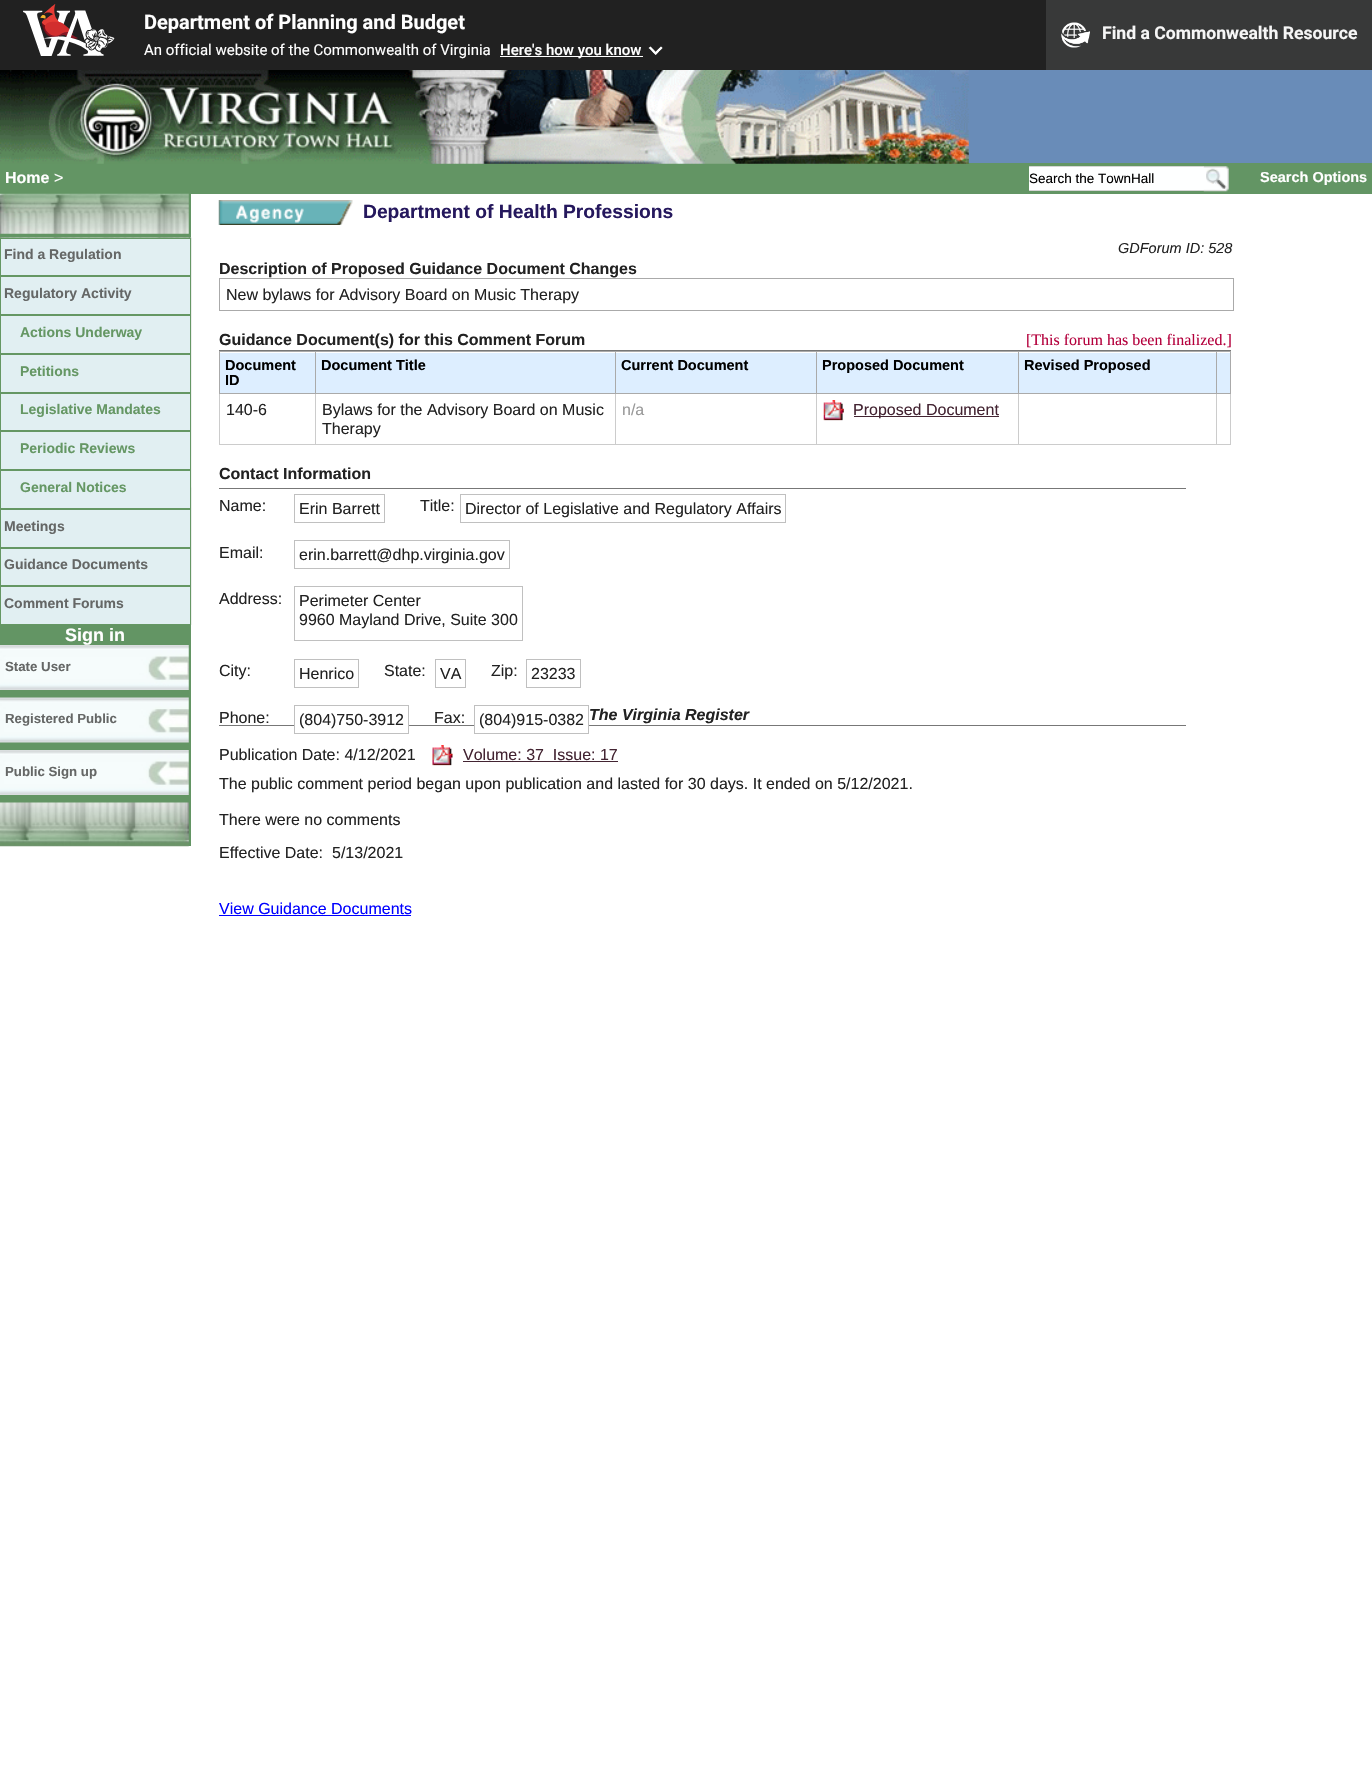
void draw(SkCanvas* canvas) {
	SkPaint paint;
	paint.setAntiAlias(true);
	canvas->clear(0xffffffff);
	paint.setColor(0xff212121);
	canvas->drawRect(SkRect::MakeXYWH(0, 0, 1046, 70), paint);
	canvas->drawImageRect(SkImages::DeferredFromEncodedData(SkData::MakeFromFileName("img1.png")), SkRect::MakeXYWH(23, 4, 92, 52), SkSamplingOptions());
	SkFont f1(fontMgr->matchFamilyStyle("Roboto", SkFontStyle::Bold()), 20);
	f1.setSubpixel(true);
	paint.setColor(0xffffffff);
	canvas->drawString("Department of Planning and Budget", 144, 29, f1, paint);
	SkFont f2(fontMgr->matchFamilyStyle("Roboto", SkFontStyle::Normal()), 15);
	f2.setSubpixel(true);
	canvas->drawString("An official website of the Commonwealth of Virginia", 144, 55, f2, paint);
	canvas->drawRect(SkRect::MakeXYWH(500, 56, 143, 1), paint);
	SkFont f3(fontMgr->matchFamilyStyle("Roboto", SkFontStyle(500, SkFontStyle::kNormal_Width, SkFontStyle::kUpright_Slant)), 15);
	f3.setSubpixel(true);
	canvas->drawString("Here's how you know", 500, 55, f3, paint);
	canvas->drawImageRect(SkImages::DeferredFromEncodedData(SkData::MakeFromFileName("img2.png")), SkRect::MakeXYWH(648, 46, 15, 9), SkSamplingOptions());
	paint.setColor(0xff383939);
	canvas->drawRect(SkRect::MakeXYWH(1046, 0, 326, 70), paint);
	canvas->drawImageRect(SkImages::DeferredFromEncodedData(SkData::MakeFromFileName("img3.png")), SkRect::MakeXYWH(1061, 22, 29, 26), SkSamplingOptions());
	SkFont f4(fontMgr->matchFamilyStyle("Roboto", SkFontStyle::Bold()), 17.6);
	f4.setSubpixel(true);
	paint.setColor(0xfff6f6f6);
	canvas->drawString("Find a Commonwealth Resource", 1102, 39, f4, paint);
	paint.setColor(0xff698cb8);
	canvas->drawRect(SkRect::MakeXYWH(968, 70, 404, 93), paint);
	paint.setColor(0xff639564);
	canvas->drawRect(SkRect::MakeXYWH(0, 163, 1372, 31), paint);
	canvas->drawImageRect(SkImages::DeferredFromEncodedData(SkData::MakeFromFileName("img4.png")), SkRect::MakeXYWH(0, 70, 969, 94), SkSamplingOptions());
	SkFont f5(fontMgr->matchFamilyStyle("Liberation Sans", SkFontStyle::Bold()), 16);
	f5.setSubpixel(true);
	paint.setColor(0xffffffff);
	canvas->drawString("Home", 5, 183, f5, paint);
	SkFont f6(fontMgr->matchFamilyStyle("Liberation Sans", SkFontStyle::Normal()), 16);
	f6.setSubpixel(true);
	canvas->drawString(">", 54, 183, f6, paint);
	paint.setColor(0xfffeffff);
	canvas->drawRect(SkRect::MakeXYWH(1029, 167, 175, 23), paint);
	paint.setColor(0xffd5d5d5);
	canvas->drawRect(SkRect::MakeXYWH(1029, 166, 175, 1), paint);
	canvas->drawRect(SkRect::MakeXYWH(1029, 190, 175, 1), paint);
	SkFont f7(fontMgr->matchFamilyStyle("Liberation Sans", SkFontStyle::Normal()), 13.5);
	f7.setSubpixel(true);
	paint.setColor(0xff000000);
	canvas->drawString("Search the TownHall", 1029, 183, f7, paint);
	canvas->drawImageRect(SkImages::DeferredFromEncodedData(SkData::MakeFromFileName("img5.png")), SkRect::MakeXYWH(1203, 166, 26, 26), SkSamplingOptions());
	SkFont f8(fontMgr->matchFamilyStyle("Liberation Sans", SkFontStyle::Bold()), 14.5);
	f8.setSubpixel(true);
	paint.setColor(0xffffffff);
	canvas->drawString("Search Options", 1260, 182, f8, paint);
	paint.setColor(0xff639564);
	canvas->drawRect(SkRect::MakeXYWH(0, 194, 191, 652), paint);
	canvas->drawImageRect(SkImages::DeferredFromEncodedData(SkData::MakeFromFileName("img6.png")), SkRect::MakeXYWH(0, 193, 189, 41), SkSamplingOptions());
	canvas->drawImageRect(SkImages::DeferredFromEncodedData(SkData::MakeFromFileName("img7.png")), SkRect::MakeXYWH(0, 237, 192, 388), SkSamplingOptions());
	paint.setColor(0xffe1eff2);
	canvas->drawRect(SkRect::MakeXYWH(0.5, 238.5, 190, 37), paint);
	paint.setStroke(true);
	paint.setStrokeWidth(1);
	paint.setColor(0xff659764);
	canvas->drawRect(SkRect::MakeXYWH(0.5, 238.5, 190, 37), paint);
	SkFont f9(fontMgr->matchFamilyStyle("Liberation Sans", SkFontStyle::Bold()), 14);
	f9.setSubpixel(true);
	paint.setStroke(false);
	paint.setColor(0xff656766);
	canvas->drawString("Find a Regulation", 4, 259, f9, paint);
	paint.setColor(0xffe1eff2);
	canvas->drawRect(SkRect::MakeXYWH(0.5, 276.5, 190, 38), paint);
	paint.setStroke(true);
	paint.setColor(0xff659764);
	canvas->drawRect(SkRect::MakeXYWH(0.5, 276.5, 190, 38), paint);
	paint.setStroke(false);
	paint.setColor(0xff656766);
	canvas->drawString("Regulatory Activity", 4, 298, f9, paint);
	paint.setColor(0xffe1eff2);
	canvas->drawRect(SkRect::MakeXYWH(0.5, 315.5, 190, 38), paint);
	paint.setStroke(true);
	paint.setColor(0xff659764);
	canvas->drawRect(SkRect::MakeXYWH(0.5, 315.5, 190, 38), paint);
	paint.setStroke(false);
	canvas->drawString("Actions Underway", 20, 337, f9, paint);
	paint.setColor(0xffe1eff2);
	canvas->drawRect(SkRect::MakeXYWH(0.5, 354.5, 190, 38), paint);
	paint.setStroke(true);
	paint.setColor(0xff659764);
	canvas->drawRect(SkRect::MakeXYWH(0.5, 354.5, 190, 38), paint);
	paint.setStroke(false);
	canvas->drawString("Petitions", 20, 376, f9, paint);
	paint.setColor(0xffe1eff2);
	canvas->drawRect(SkRect::MakeXYWH(0.5, 393.5, 190, 37), paint);
	paint.setStroke(true);
	paint.setColor(0xff659764);
	canvas->drawRect(SkRect::MakeXYWH(0.5, 393.5, 190, 37), paint);
	paint.setStroke(false);
	canvas->drawString("Legislative Mandates", 20, 414, f9, paint);
	paint.setColor(0xffe1eff2);
	canvas->drawRect(SkRect::MakeXYWH(0.5, 431.5, 190, 38), paint);
	paint.setStroke(true);
	paint.setColor(0xff659764);
	canvas->drawRect(SkRect::MakeXYWH(0.5, 431.5, 190, 38), paint);
	paint.setStroke(false);
	canvas->drawString("Periodic Reviews", 20, 453, f9, paint);
	paint.setColor(0xffe1eff2);
	canvas->drawRect(SkRect::MakeXYWH(0.5, 470.5, 190, 38), paint);
	paint.setStroke(true);
	paint.setColor(0xff659764);
	canvas->drawRect(SkRect::MakeXYWH(0.5, 470.5, 190, 38), paint);
	paint.setStroke(false);
	canvas->drawString("General Notices", 20, 492, f9, paint);
	paint.setColor(0xffe1eff2);
	canvas->drawRect(SkRect::MakeXYWH(0.5, 509.5, 190, 38), paint);
	paint.setStroke(true);
	paint.setColor(0xff659764);
	canvas->drawRect(SkRect::MakeXYWH(0.5, 509.5, 190, 38), paint);
	paint.setStroke(false);
	paint.setColor(0xff656766);
	canvas->drawString("Meetings", 4, 531, f9, paint);
	paint.setColor(0xffe1eff2);
	canvas->drawRect(SkRect::MakeXYWH(0.5, 548.5, 190, 37), paint);
	paint.setStroke(true);
	paint.setColor(0xff659764);
	canvas->drawRect(SkRect::MakeXYWH(0.5, 548.5, 190, 37), paint);
	paint.setStroke(false);
	paint.setColor(0xff656766);
	canvas->drawString("Guidance Documents", 4, 569, f9, paint);
	paint.setColor(0xffe1eff2);
	canvas->drawRect(SkRect::MakeXYWH(0.5, 586.5, 190, 38), paint);
	paint.setStroke(true);
	paint.setColor(0xff659764);
	canvas->drawRect(SkRect::MakeXYWH(0.5, 586.5, 190, 38), paint);
	paint.setStroke(false);
	paint.setColor(0xff656766);
	canvas->drawString("Comment Forums", 4, 608, f9, paint);
	SkFont f10(fontMgr->matchFamilyStyle("Liberation Sans", SkFontStyle::Bold()), 18);
	f10.setSubpixel(true);
	paint.setColor(0xffffffff);
	canvas->drawString("Sign in", 65, 641, f10, paint);
	canvas->drawImageRect(SkImages::DeferredFromEncodedData(SkData::MakeFromFileName("img8.png")), SkRect::MakeXYWH(0, 645, 189, 45), SkSamplingOptions());
	SkFont f11(fontMgr->matchFamilyStyle("Liberation Sans", SkFontStyle::Bold()), 13.25);
	f11.setSubpixel(true);
	paint.setColor(0xff656766);
	canvas->drawString("State User", 5, 671, f11, paint);
	canvas->drawImageRect(SkImages::DeferredFromEncodedData(SkData::MakeFromFileName("img9.png")), SkRect::MakeXYWH(0, 697, 189, 46), SkSamplingOptions());
	canvas->drawString("Registered Public", 5, 723, f11, paint);
	canvas->drawImageRect(SkImages::DeferredFromEncodedData(SkData::MakeFromFileName("img10.png")), SkRect::MakeXYWH(0, 750, 189, 45), SkSamplingOptions());
	canvas->drawString("Public Sign up", 5, 776, f11, paint);
	canvas->drawImageRect(SkImages::DeferredFromEncodedData(SkData::MakeFromFileName("img11.png")), SkRect::MakeXYWH(0, 802, 189, 45), SkSamplingOptions());
	canvas->drawImageRect(SkImages::DeferredFromEncodedData(SkData::MakeFromFileName("img12.png")), SkRect::MakeXYWH(218, 200, 135, 25), SkSamplingOptions());
	SkFont f12(fontMgr->matchFamilyStyle("Liberation Sans", SkFontStyle::Bold()), 19.25);
	f12.setSubpixel(true);
	paint.setColor(0xff25185d);
	canvas->drawString("Department of Health Professions", 363, 218, f12, paint);
	SkFont f13(fontMgr->matchFamilyStyle("Liberation Sans", SkFontStyle::Italic()), 14.5);
	f13.setSubpixel(true);
	paint.setColor(0xff222222);
	canvas->drawString("GDForum ID: 528", 1118, 253, f13, paint);
	canvas->drawString("Description of Proposed Guidance Document Changes", 219, 274, f5, paint);
	paint.setStroke(true);
	paint.setColor(0xffaaaaaa);
	canvas->drawRect(SkRect::MakeXYWH(219.5, 278.5, 1014, 32), paint);
	paint.setStroke(false);
	paint.setColor(0xff222222);
	canvas->drawString("New bylaws for Advisory Board on Music Therapy", 226, 300, f6, paint);
	canvas->drawString("Guidance Document(s) for this Comment Forum", 219, 345, f5, paint);
	SkFont f14(fontMgr->matchFamilyStyle("Liberation Serif", SkFontStyle::Normal()), 16);
	f14.setSubpixel(true);
	paint.setColor(0xffb4003c);
	canvas->drawString("[This forum has been finalized.]", 1026, 345, f14, paint);
	paint.setColor(0xff777777);
	canvas->drawRect(SkRect::MakeXYWH(219, 350, 1012, 1), paint);
	paint.setColor(0xffddeeff);
	canvas->drawRect(SkRect::MakeXYWH(220, 353, 95, 40), paint);
	paint.setColor(0xffaaaaaa);
	canvas->drawRect(SkRect::MakeXYWH(1216, 351, 15, 1), paint);
	paint.setColor(0xffcccccc);
	canvas->drawRect(SkRect::MakeXYWH(1230, 393, 1, 52), paint);
	paint.setColor(0xffaaaaaa);
	canvas->drawRect(SkRect::MakeXYWH(1230, 351, 1, 43), paint);
	paint.setColor(0xffcccccc);
	canvas->drawRect(SkRect::MakeXYWH(1216, 444, 15, 1), paint);
	canvas->drawRect(SkRect::MakeXYWH(1216, 393, 1, 52), paint);
	paint.setColor(0xffaaaaaa);
	canvas->drawRect(SkRect::MakeXYWH(1216, 393, 15, 1), paint);
	canvas->drawRect(SkRect::MakeXYWH(1216, 351, 1, 43), paint);
	canvas->drawRect(SkRect::MakeXYWH(1018, 351, 200, 1), paint);
	paint.setColor(0xffcccccc);
	canvas->drawRect(SkRect::MakeXYWH(1018, 444, 200, 1), paint);
	canvas->drawRect(SkRect::MakeXYWH(1018, 393, 1, 52), paint);
	paint.setColor(0xffaaaaaa);
	canvas->drawRect(SkRect::MakeXYWH(1018, 393, 200, 1), paint);
	canvas->drawRect(SkRect::MakeXYWH(1018, 351, 1, 43), paint);
	canvas->drawRect(SkRect::MakeXYWH(816, 351, 203, 1), paint);
	paint.setColor(0xffcccccc);
	canvas->drawRect(SkRect::MakeXYWH(816, 444, 203, 1), paint);
	canvas->drawRect(SkRect::MakeXYWH(816, 393, 1, 52), paint);
	paint.setColor(0xffaaaaaa);
	canvas->drawRect(SkRect::MakeXYWH(816, 393, 203, 1), paint);
	canvas->drawRect(SkRect::MakeXYWH(816, 351, 1, 43), paint);
	canvas->drawRect(SkRect::MakeXYWH(615, 351, 203, 1), paint);
	paint.setColor(0xffcccccc);
	canvas->drawRect(SkRect::MakeXYWH(615, 444, 203, 1), paint);
	canvas->drawRect(SkRect::MakeXYWH(615, 393, 1, 52), paint);
	paint.setColor(0xffaaaaaa);
	canvas->drawRect(SkRect::MakeXYWH(615, 393, 203, 1), paint);
	canvas->drawRect(SkRect::MakeXYWH(615, 351, 1, 43), paint);
	canvas->drawRect(SkRect::MakeXYWH(315, 351, 301, 1), paint);
	paint.setColor(0xffcccccc);
	canvas->drawRect(SkRect::MakeXYWH(315, 444, 301, 1), paint);
	canvas->drawRect(SkRect::MakeXYWH(315, 393, 1, 52), paint);
	paint.setColor(0xffaaaaaa);
	canvas->drawRect(SkRect::MakeXYWH(315, 393, 301, 1), paint);
	canvas->drawRect(SkRect::MakeXYWH(315, 351, 1, 43), paint);
	canvas->drawRect(SkRect::MakeXYWH(219, 351, 97, 1), paint);
	paint.setColor(0xffcccccc);
	canvas->drawRect(SkRect::MakeXYWH(219, 444, 97, 1), paint);
	canvas->drawRect(SkRect::MakeXYWH(219, 393, 1, 52), paint);
	paint.setColor(0xffaaaaaa);
	canvas->drawRect(SkRect::MakeXYWH(219, 393, 97, 1), paint);
	canvas->drawRect(SkRect::MakeXYWH(219, 351, 1, 43), paint);
	paint.setColor(0xff000000);
	canvas->drawString("Document", 225, 370, f8, paint);
	canvas->drawString("ID", 225, 385, f8, paint);
	paint.setColor(0xffddeeff);
	canvas->drawRect(SkRect::MakeXYWH(316, 353, 299, 40), paint);
	paint.setColor(0xff000000);
	canvas->drawString("Document Title", 321, 370, f8, paint);
	paint.setColor(0xffddeeff);
	canvas->drawRect(SkRect::MakeXYWH(616, 353, 200, 40), paint);
	paint.setColor(0xff000000);
	canvas->drawString("Current Document", 621, 370, f8, paint);
	paint.setColor(0xffddeeff);
	canvas->drawRect(SkRect::MakeXYWH(817, 353, 201, 40), paint);
	paint.setColor(0xff000000);
	canvas->drawString("Proposed Document", 822, 370, f8, paint);
	paint.setColor(0xffddeeff);
	canvas->drawRect(SkRect::MakeXYWH(1019, 353, 197, 40), paint);
	paint.setColor(0xff000000);
	canvas->drawString("Revised Proposed", 1024, 370, f8, paint);
	paint.setColor(0xffddeeff);
	canvas->drawRect(SkRect::MakeXYWH(1217, 353, 13, 40), paint);
	paint.setColor(0xff222222);
	canvas->drawString("140-6", 226, 415, f6, paint);
	canvas->drawString("Bylaws for the Advisory Board on Music", 322, 415, f6, paint);
	canvas->drawString("Therapy", 322, 434, f6, paint);
	paint.setColor(0xff999999);
	canvas->drawString("n/a", 622, 415, f6, paint);
	canvas->drawImageRect(SkImages::DeferredFromEncodedData(SkData::MakeFromFileName("img13.png")), SkRect::MakeXYWH(823, 400, 21, 21), SkSamplingOptions());
	paint.setColor(0xff432432);
	canvas->drawRect(SkRect::MakeXYWH(854, 416, 145, 1), paint);
	canvas->drawString("Proposed Document", 853, 415, f6, paint);
	paint.setColor(0xff222222);
	canvas->drawString("Contact Information", 219, 479, f5, paint);
	paint.setColor(0xff777777);
	canvas->drawRect(SkRect::MakeXYWH(219, 488, 967, 1), paint);
	paint.setColor(0xff222222);
	canvas->drawString("Name:", 219, 511, f6, paint);
	paint.setStroke(true);
	paint.setColor(0xffc0c0c0);
	canvas->drawRect(SkRect::MakeXYWH(294.5, 494.5, 90, 28), paint);
	paint.setStroke(false);
	paint.setColor(0xff222222);
	canvas->drawString("Erin Barrett", 299, 514, f6, paint);
	canvas->drawString("Title:", 420, 511, f6, paint);
	paint.setStroke(true);
	paint.setColor(0xffc0c0c0);
	canvas->drawRect(SkRect::MakeXYWH(460.5, 494.5, 325, 28), paint);
	paint.setStroke(false);
	paint.setColor(0xff222222);
	canvas->drawString("Director of Legislative and Regulatory Affairs", 465, 514, f6, paint);
	canvas->drawString("Email:", 219, 558, f6, paint);
	paint.setStroke(true);
	paint.setColor(0xffc0c0c0);
	canvas->drawRect(SkRect::MakeXYWH(294.5, 540.5, 215, 28), paint);
	paint.setStroke(false);
	paint.setColor(0xff222222);
	canvas->drawString("erin.barrett@dhp.virginia.gov", 299, 560, f6, paint);
	canvas->drawString("Address:", 219, 604, f6, paint);
	paint.setStroke(true);
	paint.setColor(0xffc0c0c0);
	canvas->drawRect(SkRect::MakeXYWH(294.5, 586.5, 228, 54), paint);
	paint.setStroke(false);
	paint.setColor(0xff222222);
	canvas->drawString("Perimeter Center", 299, 606, f6, paint);
	canvas->drawString("9960 Mayland Drive, Suite 300", 299, 625, f6, paint);
	canvas->drawString("City:", 219, 676, f6, paint);
	paint.setStroke(true);
	paint.setColor(0xffc0c0c0);
	canvas->drawRect(SkRect::MakeXYWH(294.5, 659.5, 64, 28), paint);
	paint.setStroke(false);
	paint.setColor(0xff222222);
	canvas->drawString("Henrico", 299, 679, f6, paint);
	canvas->drawString("State:", 384, 676, f6, paint);
	paint.setStroke(true);
	paint.setColor(0xffc0c0c0);
	canvas->drawRect(SkRect::MakeXYWH(435.5, 659.5, 30, 28), paint);
	paint.setStroke(false);
	paint.setColor(0xff222222);
	canvas->drawString("VA", 440, 679, f6, paint);
	canvas->drawString("Zip:", 491, 676, f6, paint);
	paint.setStroke(true);
	paint.setColor(0xffc0c0c0);
	canvas->drawRect(SkRect::MakeXYWH(526.5, 659.5, 54, 28), paint);
	paint.setStroke(false);
	paint.setColor(0xff222222);
	canvas->drawString("23233", 531, 679, f6, paint);
	canvas->drawString("Phone:", 219, 723, f6, paint);
	paint.setColor(0xff777777);
	canvas->drawRect(SkRect::MakeXYWH(219, 725, 967, 1), paint);
	paint.setColor(0xffffffff);
	canvas->drawRect(SkRect::MakeXYWH(295, 725, 113, 1), paint);
	paint.setStroke(true);
	paint.setColor(0xffc0c0c0);
	canvas->drawRect(SkRect::MakeXYWH(294.5, 705.5, 114, 28), paint);
	paint.setStroke(false);
	paint.setColor(0xff222222);
	canvas->drawString("(804)750-3912", 299, 725, f6, paint);
	canvas->drawString("Fax:", 434, 723, f6, paint);
	paint.setColor(0xffffffff);
	canvas->drawRect(SkRect::MakeXYWH(475, 725, 113, 1), paint);
	paint.setStroke(true);
	paint.setColor(0xffc0c0c0);
	canvas->drawRect(SkRect::MakeXYWH(474.5, 705.5, 114, 28), paint);
	paint.setStroke(false);
	paint.setColor(0xff222222);
	canvas->drawString("(804)915-0382", 479, 725, f6, paint);
	SkFont f15(fontMgr->matchFamilyStyle("Liberation Sans", SkFontStyle::BoldItalic()), 16);
	f15.setSubpixel(true);
	canvas->drawString("The Virginia Register", 589, 720, f15, paint);
	canvas->drawString("Publication Date: 4/12/2021", 219, 760, f6, paint);
	canvas->drawImageRect(SkImages::DeferredFromEncodedData(SkData::MakeFromFileName("img14.png")), SkRect::MakeXYWH(432, 745, 21, 21), SkSamplingOptions());
	paint.setColor(0xff432432);
	canvas->drawString("Volume: 37  Issue: 17", 463, 760, f6, paint);
	canvas->drawRect(SkRect::MakeXYWH(463, 761, 155, 1), paint);
	paint.setColor(0xff222222);
	canvas->drawString("The public comment period began upon publication and lasted for 30 days. It ended on 5/12/2021.", 219, 789, f6, paint);
	canvas->drawString("There were no comments", 219, 825, f6, paint);
	canvas->drawString("Effective Date:", 219, 858, f6, paint);
	canvas->drawString("5/13/2021", 332, 858, f6, paint);
	paint.setColor(0xff0000ff);
	canvas->drawString("View Guidance Documents", 219, 914, f6, paint);
	canvas->drawRect(SkRect::MakeXYWH(219, 915, 192, 1), paint);
}
